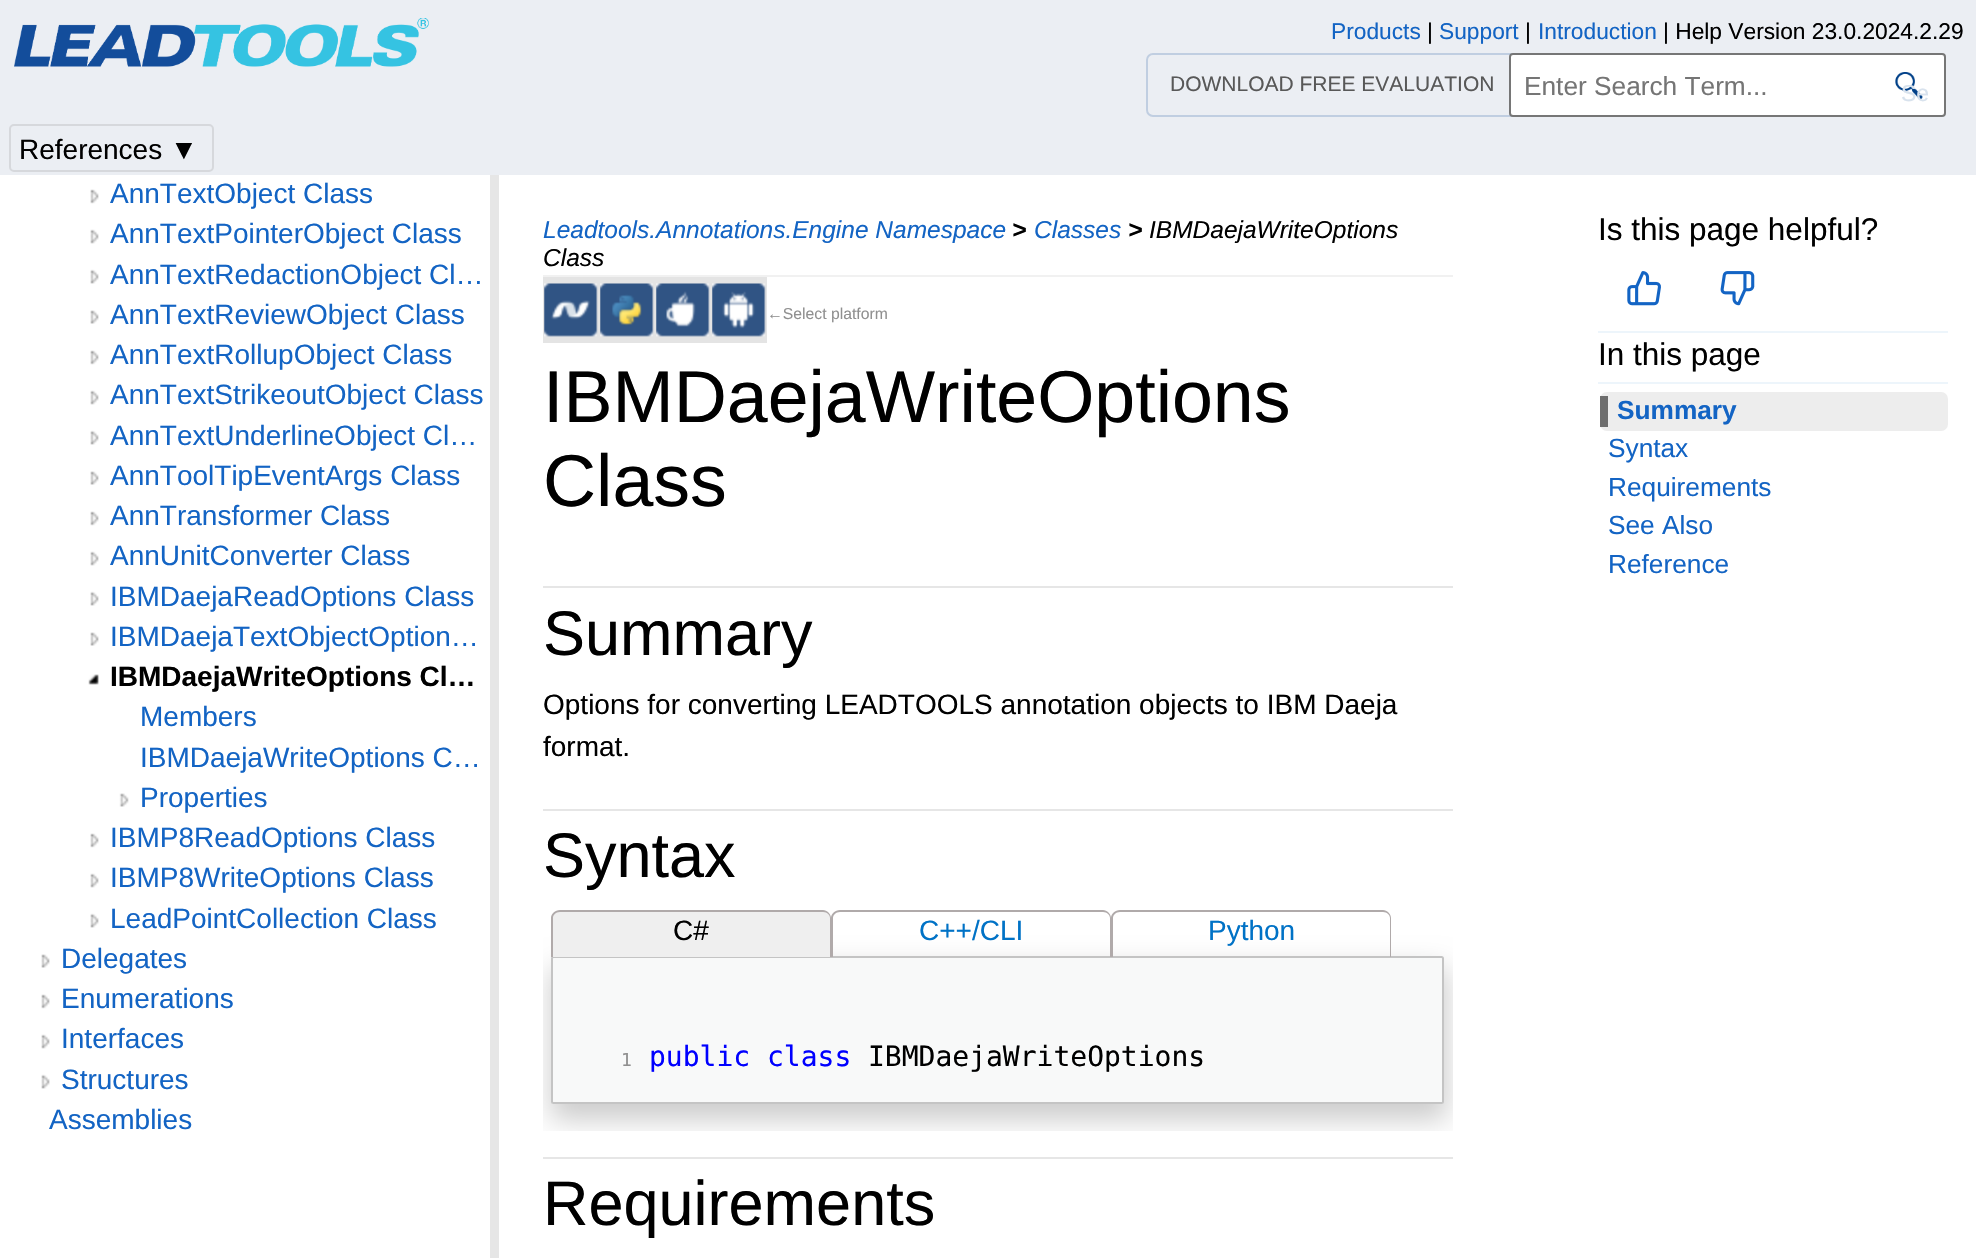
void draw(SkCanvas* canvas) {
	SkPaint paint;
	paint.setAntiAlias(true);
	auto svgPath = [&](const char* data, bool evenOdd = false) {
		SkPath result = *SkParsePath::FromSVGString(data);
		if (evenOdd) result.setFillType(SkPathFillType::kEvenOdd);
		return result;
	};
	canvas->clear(0xffffffff);
	paint.setColor(0xffebeef3);
	canvas->drawRect(SkRect::MakeXYWH(0, 0, 1976, 175), paint);
	canvas->drawImageRect(SkImages::DeferredFromEncodedData(SkData::MakeFromFileName("img1.png")), SkRect::MakeXYWH(14, 18, 415, 49), SkSamplingOptions());
	SkFont f1(fontMgr->matchFamilyStyle("Liberation Sans", SkFontStyle::Normal()), 22.75);
	f1.setSubpixel(true);
	paint.setColor(0xff1364c4);
	canvas->drawString("Products", 1331, 39, f1, paint);
	paint.setColor(0xff000000);
	canvas->drawString("|", 1427, 39, f1, paint);
	paint.setColor(0xff1364c4);
	canvas->drawString("Support", 1439, 39, f1, paint);
	paint.setColor(0xff000000);
	canvas->drawString("|", 1525, 39, f1, paint);
	paint.setColor(0xff1364c4);
	canvas->drawString("Introduction", 1538, 39, f1, paint);
	paint.setColor(0xff000000);
	canvas->drawString("| Help Version 23.0.2024.2.29", 1663, 39, f1, paint);
	paint.setStroke(true);
	paint.setStrokeWidth(2);
	paint.setColor(0xffc0cee1);
	canvas->drawRoundRect(SkRect::MakeXYWH(1147, 54, 369, 62), 6, 6, paint);
	SkFont f2(fontMgr->matchFamilyStyle("Liberation Sans", SkFontStyle::Normal()), 21);
	f2.setSubpixel(true);
	paint.setStroke(false);
	paint.setColor(0xff585858);
	canvas->drawString("DOWNLOAD FREE EVALUATION", 1170, 91, f2, paint);
	paint.setColor(0xffffffff);
	canvas->drawRoundRect(SkRect::MakeXYWH(1510, 54, 435, 62), 3, 3, paint);
	paint.setStroke(true);
	paint.setColor(0xff767676);
	canvas->drawRoundRect(SkRect::MakeXYWH(1510, 54, 435, 62), 3, 3, paint);
	SkFont f3(fontMgr->matchFamilyStyle("Liberation Sans", SkFontStyle::Normal()), 26.25);
	f3.setSubpixel(true);
	paint.setStroke(false);
	paint.setColor(0xff757575);
	canvas->drawString("Enter Search Term...", 1524, 95, f3, paint);
	canvas->drawImageRect(SkImages::DeferredFromEncodedData(SkData::MakeFromFileName("img2.png")), SkRect::MakeXYWH(1895, 72, 28, 27), SkSamplingOptions());
	SkFont f4(fontMgr->matchFamilyStyle("Liberation Sans", SkFontStyle::Normal()), 23);
	f4.setSubpixel(true);
	paint.setColor(0xffd8e2ed);
	canvas->drawString("Se", 1901, 101, f4, paint);
	paint.setStroke(true);
	paint.setColor(0xffd6d8dc);
	canvas->drawRoundRect(SkRect::MakeXYWH(10, 125, 203, 46), 4, 4, paint);
	SkFont f5(fontMgr->matchFamilyStyle("Liberation Sans", SkFontStyle::Normal()), 28);
	f5.setSubpixel(true);
	paint.setStroke(false);
	paint.setColor(0xff000000);
	canvas->drawString("References ▼", 19, 159, f5, paint);
	paint.setColor(0xffe6e6e6);
	canvas->drawRect(SkRect::MakeXYWH(490, 175, 9, 1083), paint);
	canvas->drawImageRect(SkImages::DeferredFromEncodedData(SkData::MakeFromFileName("img3.png")), SkRect::MakeXYWH(90, 189, 9, 15), SkSamplingOptions());
	paint.setColor(0xff1364c4);
	canvas->drawString("AnnTextObject Class", 110, 203, f5, paint);
	canvas->drawImageRect(SkImages::DeferredFromEncodedData(SkData::MakeFromFileName("img4.png")), SkRect::MakeXYWH(90, 229, 9, 15), SkSamplingOptions());
	canvas->drawString("AnnTextPointerObject Class", 110, 243, f5, paint);
	canvas->drawImageRect(SkImages::DeferredFromEncodedData(SkData::MakeFromFileName("img5.png")), SkRect::MakeXYWH(90, 269, 9, 15), SkSamplingOptions());
	canvas->drawString("AnnTextRedactionObject Cl…", 110, 284, f5, paint);
	canvas->drawImageRect(SkImages::DeferredFromEncodedData(SkData::MakeFromFileName("img6.png")), SkRect::MakeXYWH(90, 310, 9, 14), SkSamplingOptions());
	canvas->drawString("AnnTextReviewObject Class", 110, 324, f5, paint);
	canvas->drawImageRect(SkImages::DeferredFromEncodedData(SkData::MakeFromFileName("img3.png")), SkRect::MakeXYWH(90, 350, 9, 15), SkSamplingOptions());
	canvas->drawString("AnnTextRollupObject Class", 110, 364, f5, paint);
	canvas->drawImageRect(SkImages::DeferredFromEncodedData(SkData::MakeFromFileName("img4.png")), SkRect::MakeXYWH(90, 390, 9, 15), SkSamplingOptions());
	canvas->drawString("AnnTextStrikeoutObject Class", 110, 404, f5, paint);
	canvas->drawImageRect(SkImages::DeferredFromEncodedData(SkData::MakeFromFileName("img5.png")), SkRect::MakeXYWH(90, 430, 9, 15), SkSamplingOptions());
	canvas->drawString("AnnTextUnderlineObject Cl…", 110, 445, f5, paint);
	canvas->drawImageRect(SkImages::DeferredFromEncodedData(SkData::MakeFromFileName("img6.png")), SkRect::MakeXYWH(90, 471, 9, 14), SkSamplingOptions());
	canvas->drawString("AnnToolTipEventArgs Class", 110, 485, f5, paint);
	canvas->drawImageRect(SkImages::DeferredFromEncodedData(SkData::MakeFromFileName("img3.png")), SkRect::MakeXYWH(90, 511, 9, 15), SkSamplingOptions());
	canvas->drawString("AnnTransformer Class", 110, 525, f5, paint);
	canvas->drawImageRect(SkImages::DeferredFromEncodedData(SkData::MakeFromFileName("img4.png")), SkRect::MakeXYWH(90, 551, 9, 15), SkSamplingOptions());
	canvas->drawString("AnnUnitConverter Class", 110, 565, f5, paint);
	canvas->drawImageRect(SkImages::DeferredFromEncodedData(SkData::MakeFromFileName("img5.png")), SkRect::MakeXYWH(90, 591, 9, 15), SkSamplingOptions());
	canvas->drawString("IBMDaejaReadOptions Class", 110, 606, f5, paint);
	canvas->drawImageRect(SkImages::DeferredFromEncodedData(SkData::MakeFromFileName("img6.png")), SkRect::MakeXYWH(90, 632, 9, 14), SkSamplingOptions());
	canvas->drawString("IBMDaejaTextObjectOption…", 110, 646, f5, paint);
	canvas->drawImageRect(SkImages::DeferredFromEncodedData(SkData::MakeFromFileName("img7.png")), SkRect::MakeXYWH(88, 674, 11, 11), SkSamplingOptions());
	SkFont f6(fontMgr->matchFamilyStyle("Liberation Sans", SkFontStyle::Bold()), 28);
	f6.setSubpixel(true);
	paint.setColor(0xff000000);
	canvas->drawString("IBMDaejaWriteOptions Cl…", 110, 686, f6, paint);
	paint.setColor(0xff1364c4);
	canvas->drawString("Members", 140, 726, f5, paint);
	canvas->drawString("IBMDaejaWriteOptions C…", 140, 767, f5, paint);
	canvas->drawImageRect(SkImages::DeferredFromEncodedData(SkData::MakeFromFileName("img8.png")), SkRect::MakeXYWH(119, 793, 10, 14), SkSamplingOptions());
	canvas->drawString("Properties", 140, 807, f5, paint);
	canvas->drawImageRect(SkImages::DeferredFromEncodedData(SkData::MakeFromFileName("img3.png")), SkRect::MakeXYWH(90, 833, 9, 15), SkSamplingOptions());
	canvas->drawString("IBMP8ReadOptions Class", 110, 847, f5, paint);
	canvas->drawImageRect(SkImages::DeferredFromEncodedData(SkData::MakeFromFileName("img4.png")), SkRect::MakeXYWH(90, 873, 9, 15), SkSamplingOptions());
	canvas->drawString("IBMP8WriteOptions Class", 110, 887, f5, paint);
	canvas->drawImageRect(SkImages::DeferredFromEncodedData(SkData::MakeFromFileName("img5.png")), SkRect::MakeXYWH(90, 913, 9, 15), SkSamplingOptions());
	canvas->drawString("LeadPointCollection Class", 110, 928, f5, paint);
	canvas->drawImageRect(SkImages::DeferredFromEncodedData(SkData::MakeFromFileName("img6.png")), SkRect::MakeXYWH(41, 954, 9, 14), SkSamplingOptions());
	canvas->drawString("Delegates", 61, 968, f5, paint);
	canvas->drawImageRect(SkImages::DeferredFromEncodedData(SkData::MakeFromFileName("img9.png")), SkRect::MakeXYWH(41, 994, 9, 15), SkSamplingOptions());
	canvas->drawString("Enumerations", 61, 1008, f5, paint);
	canvas->drawImageRect(SkImages::DeferredFromEncodedData(SkData::MakeFromFileName("img4.png")), SkRect::MakeXYWH(41, 1034, 9, 15), SkSamplingOptions());
	canvas->drawString("Interfaces", 61, 1048, f5, paint);
	canvas->drawImageRect(SkImages::DeferredFromEncodedData(SkData::MakeFromFileName("img5.png")), SkRect::MakeXYWH(41, 1074, 9, 15), SkSamplingOptions());
	canvas->drawString("Structures", 61, 1089, f5, paint);
	canvas->drawString("Assemblies", 49, 1129, f5, paint);
	paint.setColor(0xfff1f1f1);
	canvas->drawRect(SkRect::MakeXYWH(543, 275, 910, 2), paint);
	SkFont f7(fontMgr->matchFamilyStyle("Liberation Sans", SkFontStyle::Italic()), 24.5);
	f7.setSubpixel(true);
	paint.setColor(0xff1364c4);
	canvas->drawString("Leadtools.Annotations.Engine Namespace", 543, 238, f7, paint);
	SkFont f8(fontMgr->matchFamilyStyle("Liberation Sans", SkFontStyle::BoldItalic()), 24.5);
	f8.setSubpixel(true);
	paint.setColor(0xff000000);
	canvas->drawString(">", 1012, 238, f8, paint);
	paint.setColor(0xff1364c4);
	canvas->drawString("Classes", 1034, 238, f7, paint);
	paint.setColor(0xff000000);
	canvas->drawString(">", 1128, 238, f8, paint);
	canvas->drawString("IBMDaejaWriteOptions", 1149, 238, f7, paint);
	canvas->drawString("Class", 543, 266, f7, paint);
	SkFont f9(fontMgr->matchFamilyStyle("Liberation Sans", SkFontStyle::Normal()), 31.5);
	f9.setSubpixel(true);
	canvas->drawString("Is this page helpful?", 1598, 240, f9, paint);
	canvas->drawImageRect(SkImages::DeferredFromEncodedData(SkData::MakeFromFileName("img10.png")), SkRect::MakeXYWH(1627, 271, 34, 35), SkSamplingOptions());
	canvas->drawImageRect(SkImages::DeferredFromEncodedData(SkData::MakeFromFileName("img11.png")), SkRect::MakeXYWH(1720, 271, 35, 35), SkSamplingOptions());
	paint.setColor(0xffedf5fb);
	canvas->drawRect(SkRect::MakeXYWH(1598, 331, 350, 2), paint);
	canvas->drawRect(SkRect::MakeXYWH(1598, 382, 350, 2), paint);
	paint.setColor(0xff000000);
	canvas->drawString("In this page", 1598, 365, f9, paint);
	paint.setColor(0xffededed);
	canvas->drawRoundRect(SkRect::MakeXYWH(1600, 392, 348, 39), 7, 7, paint);
	paint.setColor(0xcc4d4d4d);
	canvas->drawRect(SkRect::MakeXYWH(1600, 396, 8, 31), paint);
	SkFont f10(fontMgr->matchFamilyStyle("Liberation Sans", SkFontStyle::Bold()), 26.25);
	f10.setSubpixel(true);
	paint.setColor(0xff1364c4);
	canvas->drawString("Summary", 1617, 419, f10, paint);
	canvas->drawString("Syntax", 1608, 457, f3, paint);
	canvas->drawString("Requirements", 1608, 496, f3, paint);
	canvas->drawString("See Also", 1608, 534, f3, paint);
	canvas->drawString("Reference", 1608, 573, f3, paint);
	paint.setColor(0xffe4e4e4);
	canvas->drawRect(SkRect::MakeXYWH(543, 277, 224, 66), paint);
	canvas->drawImageRect(SkImages::DeferredFromEncodedData(SkData::MakeFromFileName("img12.png")), SkRect::MakeXYWH(544, 283, 54, 54), SkSamplingOptions());
	canvas->drawImageRect(SkImages::DeferredFromEncodedData(SkData::MakeFromFileName("img13.png")), SkRect::MakeXYWH(600, 283, 54, 54), SkSamplingOptions());
	canvas->drawImageRect(SkImages::DeferredFromEncodedData(SkData::MakeFromFileName("img14.png")), SkRect::MakeXYWH(656, 283, 54, 54), SkSamplingOptions());
	canvas->drawImageRect(SkImages::DeferredFromEncodedData(SkData::MakeFromFileName("img15.png")), SkRect::MakeXYWH(712, 283, 54, 54), SkSamplingOptions());
	SkFont f11(fontMgr->matchFamilyStyle("Liberation Sans", SkFontStyle::Normal()), 15.75);
	f11.setSubpixel(true);
	paint.setColor(0xff909090);
	canvas->drawString("←Select platform", 767, 319, f11, paint);
	SkFont f12(fontMgr->matchFamilyStyle("Liberation Sans", SkFontStyle::Normal()), 73.5);
	f12.setSubpixel(true);
	paint.setColor(0xff000000);
	canvas->drawString("IBMDaejaWriteOptions", 543, 422, f12, paint);
	canvas->drawString("Class", 543, 506, f12, paint);
	paint.setColor(0xffe6e6e6);
	canvas->drawRect(SkRect::MakeXYWH(543, 586, 910, 2), paint);
	SkFont f13(fontMgr->matchFamilyStyle("Liberation Sans", SkFontStyle::Normal()), 63);
	f13.setSubpixel(true);
	paint.setColor(0xff000000);
	canvas->drawString("Summary", 543, 655, f13, paint);
	canvas->drawString("Options for converting LEADTOOLS annotation objects to IBM Daeja", 543, 714, f5, paint);
	canvas->drawString("format.", 543, 756, f5, paint);
	paint.setColor(0xffe6e6e6);
	canvas->drawRect(SkRect::MakeXYWH(543, 809, 910, 2), paint);
	paint.setColor(0xff000000);
	canvas->drawString("Syntax", 543, 877, f13, paint);
	canvas->save();
	canvas->clipRect(SkRect::MakeXYWH(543, 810, 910, 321));
	canvas->clipPath(svgPath("M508 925H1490V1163H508ZM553.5 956H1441.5C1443 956 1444 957 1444 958.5V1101.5C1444 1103 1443 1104 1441.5 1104H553.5C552 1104 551 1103 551 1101.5V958.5C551 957 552 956 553.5 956Z", true), true);
	paint.setColor(0x33000000);
	paint.setMaskFilter(SkMaskFilter::MakeBlur(kNormal_SkBlurStyle, 14));
	canvas->drawRoundRect(SkRect::MakeXYWH(551, 968, 896, 152), 4, 4, paint);
	paint.setMaskFilter(nullptr);
	canvas->restore();
	paint.setColor(0x66eeeff0);
	canvas->drawRoundRect(SkRect::MakeXYWH(551, 956, 893, 148), 2.5, 2.5, paint);
	paint.setStroke(true);
	paint.setColor(0x66767676);
	canvas->drawRoundRect(SkRect::MakeXYWH(552, 957, 891, 146), 1.5, 1.5, paint);
	paint.setStroke(false);
	paint.setColor(0xffefefef);
	canvas->drawPath(svgPath("M560 912H823C827 912 830 915 830 919V957H553V919C553 915 556 912 560 912Z"), paint);
	paint.setColor(0xffb0aaaa);
	canvas->drawPath(svgPath("M560 910H823C827 910 831 914 831 918V957H551V918C551 914 555 910 560 910ZM560 912H823C827 912 830 915 830 918V957H553V918C553 915 556 912 560 912Z", true), paint);
	paint.setColor(0xff000000);
	canvas->drawString("C#", 673, 940, f5, paint);
	paint.setColor(0xffb0aaaa);
	canvas->drawPath(svgPath("M840 910H1103C1107 910 1111 914 1111 918V957H831V918C831 914 835 910 840 910ZM840 912H1103C1107 912 1110 915 1110 918V957H833V918C833 915 836 912 840 912Z", true), paint);
	paint.setColor(0xff0072c6);
	canvas->drawString("C++/CLI", 919, 940, f5, paint);
	paint.setColor(0xffb0aaaa);
	canvas->drawPath(svgPath("M1120 910H1383C1387 910 1391 914 1391 918V957H1111V918C1111 914 1115 910 1120 910ZM1120 912H1383C1387 912 1390 915 1390 918V957H1113V918C1113 915 1116 912 1120 912Z", true), paint);
	paint.setColor(0xff0072c6);
	canvas->drawString("Python", 1208, 940, f5, paint);
	SkFont f14(fontMgr->matchFamilyStyle("DejaVu Sans Mono", SkFontStyle::Normal()), 18);
	f14.setSubpixel(true);
	paint.setColor(0xff909090);
	canvas->drawString("1", 621, 1066, f14, paint);
	SkFont f15(fontMgr->matchFamilyStyle("DejaVu Sans Mono", SkFontStyle::Normal()), 28);
	f15.setSubpixel(true);
	paint.setColor(0xff0000ff);
	canvas->drawString("public class", 649, 1066, f15, paint);
	paint.setColor(0xff000000);
	canvas->drawString("IBMDaejaWriteOptions", 868, 1066, f15, paint);
	paint.setColor(0xffe6e6e6);
	canvas->drawRect(SkRect::MakeXYWH(543, 1157, 910, 2), paint);
	paint.setColor(0xff000000);
	canvas->drawString("Requirements", 543, 1225, f13, paint);
}
